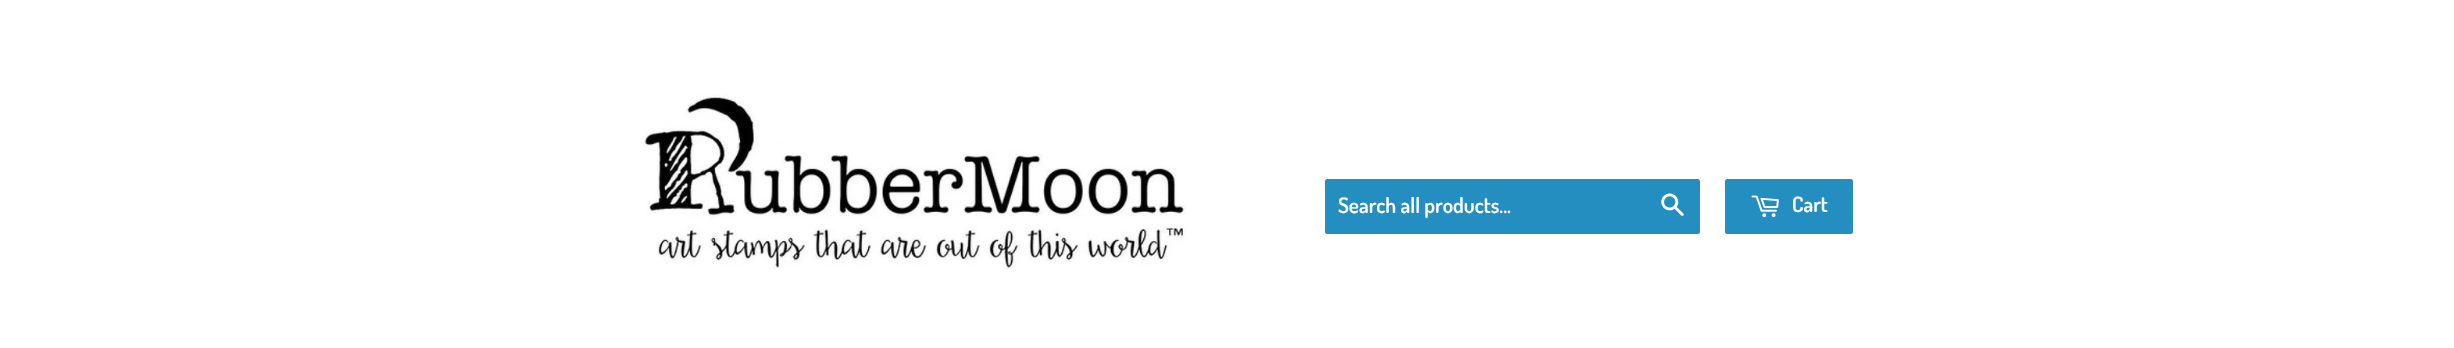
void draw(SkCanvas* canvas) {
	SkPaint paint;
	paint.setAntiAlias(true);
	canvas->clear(0xffffffff);
	canvas->drawImageRect(SkImages::DeferredFromEncodedData(SkData::MakeFromFileName("img1.png")), SkRect::MakeXYWH(643, 94, 544, 175), SkSamplingOptions());
	paint.setColor(0xff238ebf);
	canvas->drawRoundRect(SkRect::MakeXYWH(1325, 179, 375, 55), 2.5, 2.5, paint);
	SkFont f1(fontMgr->matchFamilyStyle("Dosis", SkFontStyle(600, SkFontStyle::kNormal_Width, SkFontStyle::kUpright_Slant)), 21.25);
	f1.setSubpixel(true);
	paint.setColor(0xffffffff);
	canvas->drawString("Search all products...", 1338, 213, f1, paint);
	canvas->drawImageRect(SkImages::DeferredFromEncodedData(SkData::MakeFromFileName("img2.png")), SkRect::MakeXYWH(1661, 193, 23, 23), SkSamplingOptions());
	paint.setColor(0xff238ebf);
	canvas->drawRoundRect(SkRect::MakeXYWH(1725, 179, 128, 55), 2.5, 2.5, paint);
	canvas->drawImageRect(SkImages::DeferredFromEncodedData(SkData::MakeFromFileName("img3.png")), SkRect::MakeXYWH(1751, 195, 28, 23), SkSamplingOptions());
	paint.setColor(0xffffffff);
	canvas->drawString("Cart", 1792, 212, f1, paint);
}
